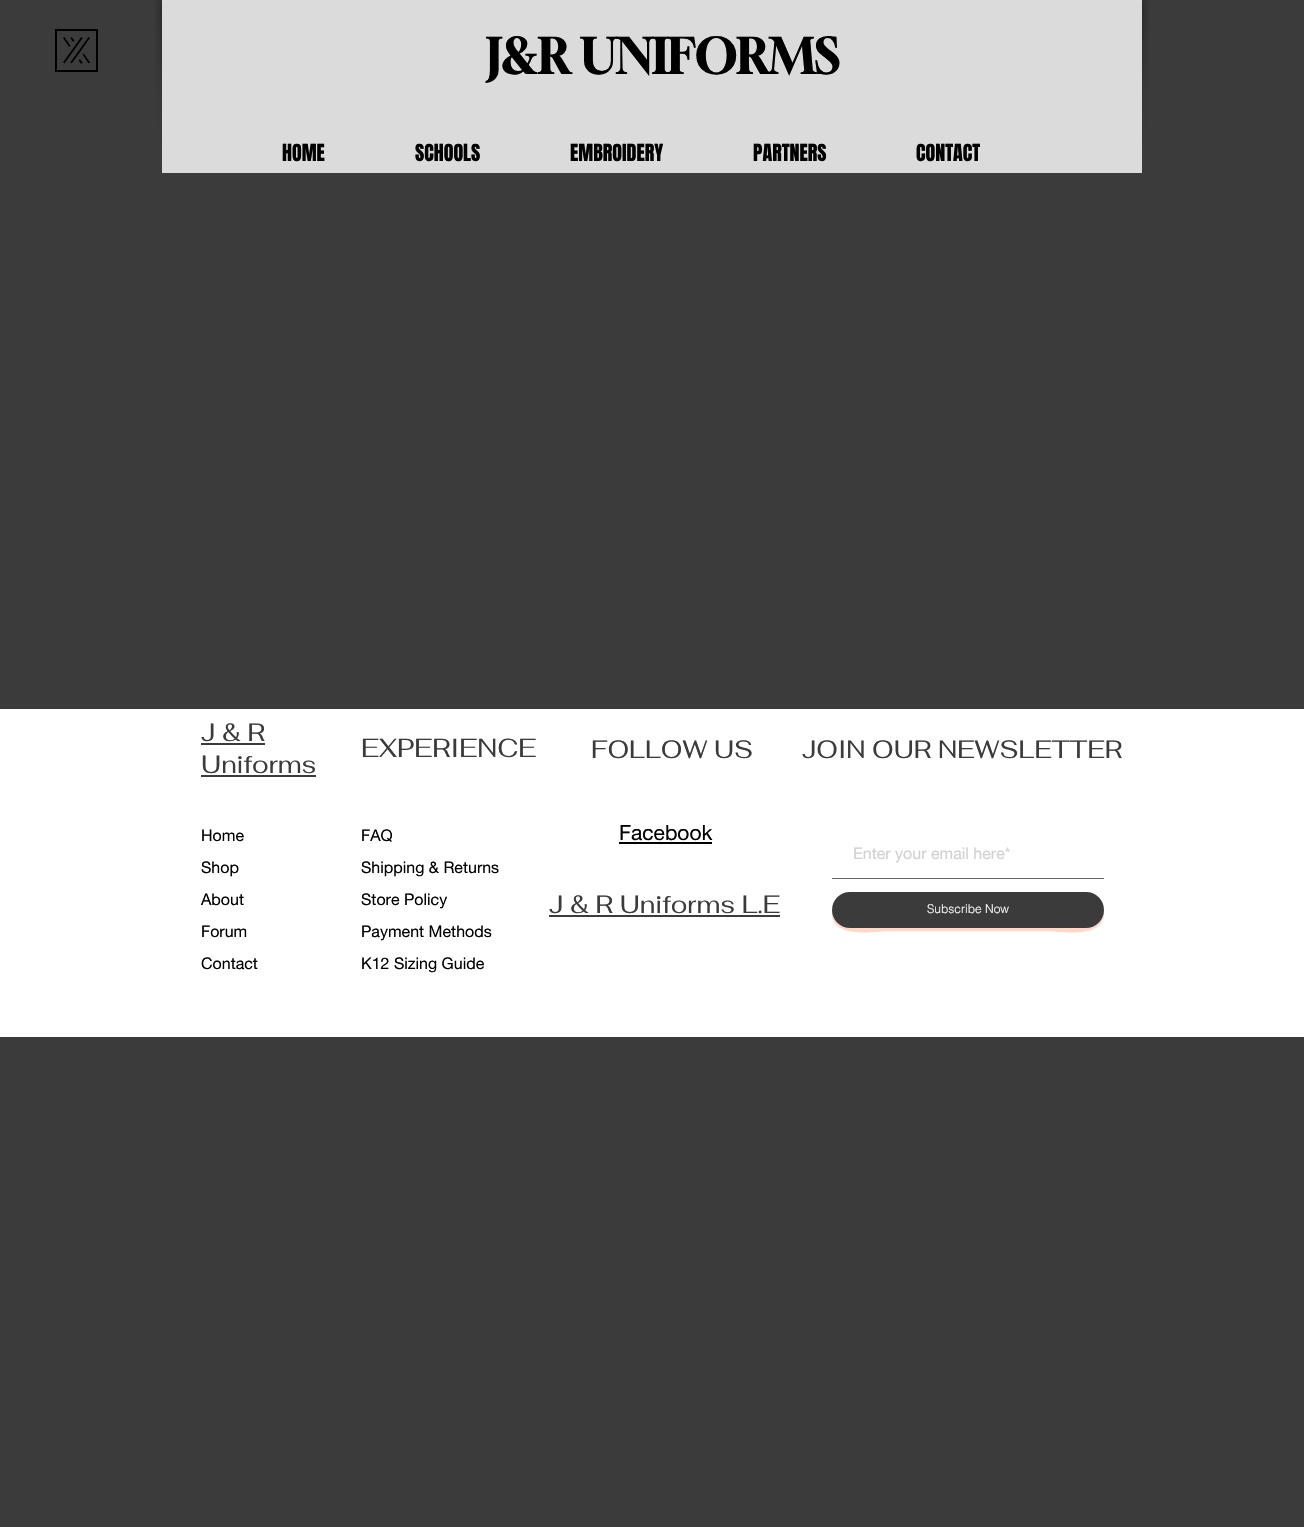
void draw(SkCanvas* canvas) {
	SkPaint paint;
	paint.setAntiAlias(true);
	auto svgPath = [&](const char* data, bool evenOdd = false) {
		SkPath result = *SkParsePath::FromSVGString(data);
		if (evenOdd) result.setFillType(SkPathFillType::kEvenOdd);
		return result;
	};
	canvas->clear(0xff3b3b3b);
	paint.setStroke(true);
	paint.setStrokeWidth(2);
	paint.setColor(0xff000000);
	canvas->drawPath(svgPath("M97 30V71H56V30Z"), paint);
	canvas->drawImageRect(SkImages::DeferredFromEncodedData(SkData::MakeFromFileName("img1.png")), SkRect::MakeXYWH(63, 37, 27, 27), SkSamplingOptions());
	canvas->drawImageRect(SkImages::DeferredFromEncodedData(SkData::MakeFromFileName("img2.png")), SkRect::MakeXYWH(155, 0, 7, 138), SkSamplingOptions());
	paint.setStroke(false);
	paint.setColor(0xffdbdbdb);
	canvas->drawRect(SkRect::MakeXYWH(162, 0, 980, 173), paint);
	canvas->drawImageRect(SkImages::DeferredFromEncodedData(SkData::MakeFromFileName("img3.png")), SkRect::MakeXYWH(1142, 0, 7, 138), SkSamplingOptions());
	SkFont f1(fontMgr->matchFamilyStyle("Gloock", SkFontStyle::Bold()), 48);
	f1.setSubpixel(true);
	paint.setColor(0xff000000);
	canvas->drawString("J&R UNIFORMS", 486, 74, f1, paint);
	SkFont f2(fontMgr->matchFamilyStyle("Anton", SkFontStyle::Normal()), 20);
	f2.setSubpixel(true);
	canvas->drawString("HOME", 282, 161, f2, paint);
	canvas->drawString("SCHOOLS", 415, 161, f2, paint);
	canvas->drawString("EMBROIDERY", 570, 161, f2, paint);
	canvas->drawString("PARTNERS", 753, 161, f2, paint);
	canvas->drawString("CONTACT", 916, 161, f2, paint);
	paint.setColor(0xffffffff);
	canvas->drawRect(SkRect::MakeXYWH(0, 709, 1304, 328), paint);
	SkFont f3(fontMgr->matchFamilyStyle("Fahkwang", SkFontStyle::Normal()), 25);
	f3.setSubpixel(true);
	paint.setColor(0xff3b3b3b);
	canvas->drawString("J & R", 201, 741, f3, paint);
	canvas->drawRect(SkRect::MakeXYWH(201, 743, 64, 2), paint);
	canvas->drawString("Uniforms", 201, 773, f3, paint);
	canvas->drawRect(SkRect::MakeXYWH(201, 775, 115, 2), paint);
	SkFont f4(fontMgr->matchFamilyStyle("Fahkwang", SkFontStyle::Normal()), 26);
	f4.setSubpixel(true);
	canvas->drawString("EXPERIENCE", 361, 757, f4, paint);
	canvas->drawString("FOLLOW US", 591, 758, f3, paint);
	canvas->drawString("JOIN OUR NEWSLETTER", 802, 758, f3, paint);
	SkFont f5(fontMgr->matchFamilyStyle("helvetica neue", SkFontStyle::Normal()), 16);
	f5.setSubpixel(true);
	paint.setColor(0xff000000);
	canvas->drawString("Home", 201, 841, f5, paint);
	canvas->drawString("Shop", 201, 873, f5, paint);
	canvas->drawString("About", 201, 905, f5, paint);
	canvas->drawString("Forum", 201, 937, f5, paint);
	canvas->drawString("Contact", 201, 969, f5, paint);
	canvas->drawString("FAQ", 361, 841, f5, paint);
	canvas->drawString("Shipping & Returns", 361, 873, f5, paint);
	canvas->drawString("Store Policy", 361, 905, f5, paint);
	canvas->drawString("Payment Methods", 361, 937, f5, paint);
	canvas->drawString("K12 Sizing Guide", 361, 969, f5, paint);
	SkFont f6(fontMgr->matchFamilyStyle("helvetica neue", SkFontStyle::Normal()), 21);
	f6.setSubpixel(true);
	canvas->drawString("Facebook", 619, 840, f6, paint);
	canvas->drawRect(SkRect::MakeXYWH(619, 842, 93, 2), paint);
	paint.setColor(0xff666666);
	canvas->drawRect(SkRect::MakeXYWH(832, 878, 272, 1), paint);
	paint.setColor(0xffd1d1d1);
	canvas->drawString("Enter your email here*", 853, 859, f5, paint);
	paint.setColor(0xffffd7c8);
	canvas->drawPath(svgPath("M832 912C830 940 878 931 889 931H1047C1058 931 1106 940 1104 912C1103 921 1095 928 1086 928H850C841 928 833 921 832 912Z"), paint);
	paint.setColor(0xff3b3b3b);
	canvas->drawRoundRect(SkRect::MakeXYWH(832, 892, 272, 36), 18, 18, paint);
	SkFont f7(fontMgr->matchFamilyStyle("helvetica", SkFontStyle(300, SkFontStyle::kNormal_Width, SkFontStyle::kUpright_Slant)), 12);
	f7.setSubpixel(true);
	paint.setColor(0xffffffff);
	canvas->drawString("Subscribe Now", 927, 913, f7, paint);
	paint.setColor(0xff3b3b3b);
	canvas->drawString("J & R Uniforms L.E", 549, 913, f3, paint);
	canvas->drawRect(SkRect::MakeXYWH(549, 915, 231, 2), paint);
}
